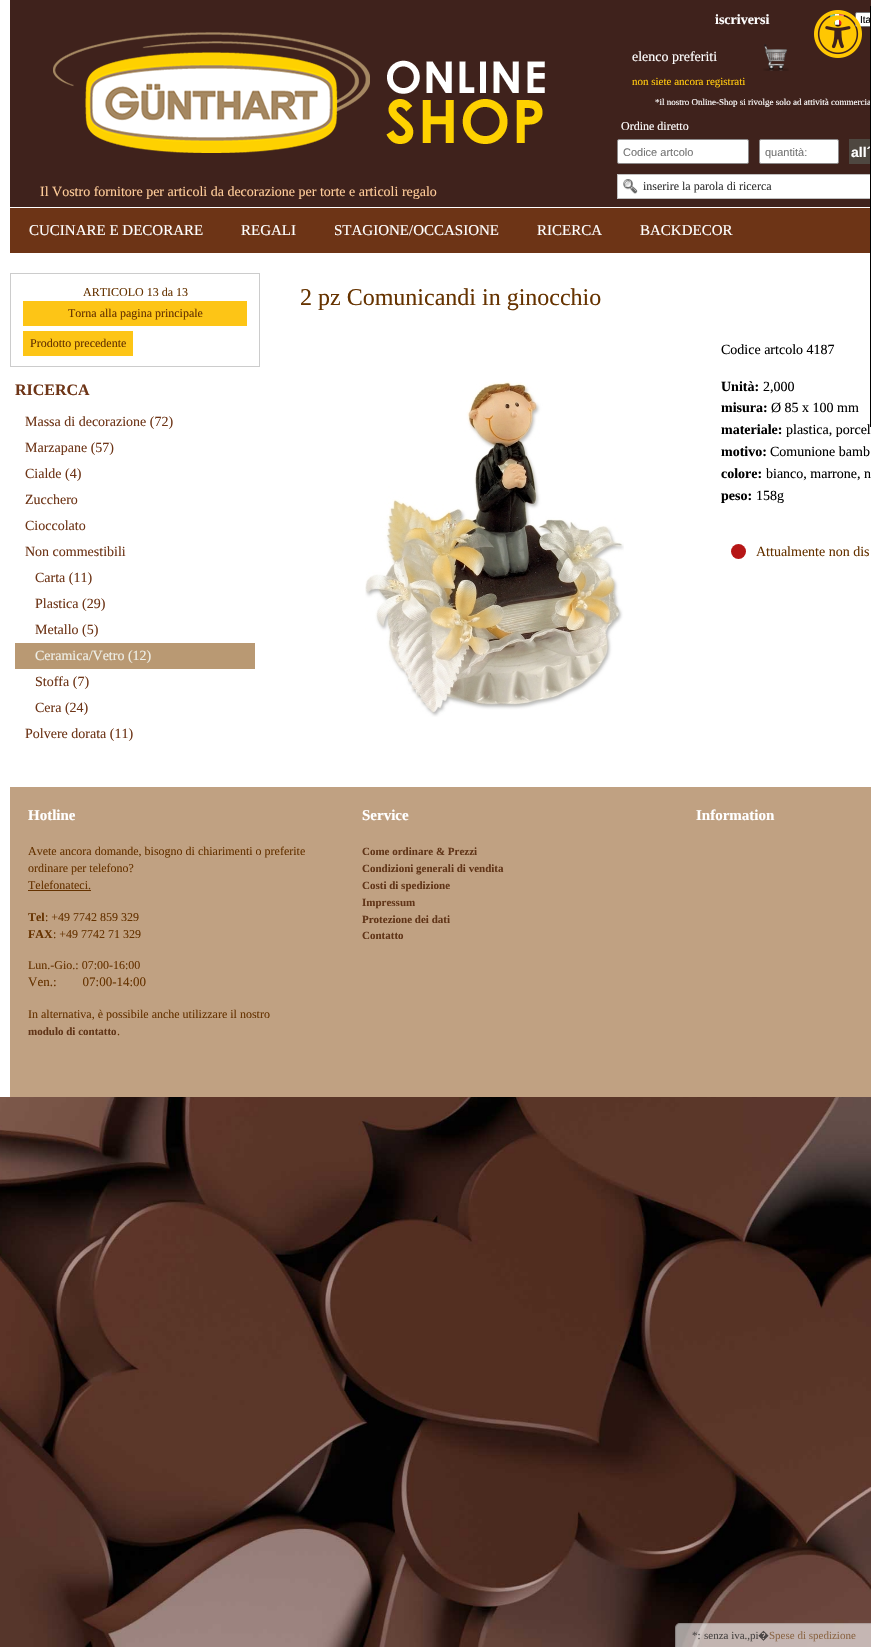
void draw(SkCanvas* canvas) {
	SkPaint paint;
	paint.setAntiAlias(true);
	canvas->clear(0xffffffff);
	canvas->drawImageRect(SkImages::DeferredFromEncodedData(SkData::MakeFromFileName("img1.png")), SkRect::MakeXYWH(0, 1097, 871, 550), SkSamplingOptions());
	paint.setColor(0xff3f221c);
	canvas->drawRect(SkRect::MakeXYWH(10, 0, 861, 207), paint);
	canvas->drawImageRect(SkImages::DeferredFromEncodedData(SkData::MakeFromFileName("img3.png")), SkRect::MakeXYWH(829, 13, 16, 13), SkSamplingOptions());
	paint.setColor(0xffffffff);
	canvas->drawRoundRect(SkRect::MakeXYWH(855.5, 12.5, 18, 14), 1.5, 1.5, paint);
	paint.setStroke(true);
	paint.setStrokeWidth(1);
	paint.setColor(0xff767676);
	canvas->drawRoundRect(SkRect::MakeXYWH(855.5, 12.5, 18, 14), 1.5, 1.5, paint);
	SkFont f1(fontMgr->matchFamilyStyle("Liberation Sans", SkFontStyle::Normal()), 10);
	f1.setSubpixel(true);
	paint.setStroke(false);
	paint.setColor(0xff000000);
	canvas->drawString("Ita", 860, 23, f1, paint);
	canvas->drawImageRect(SkImages::DeferredFromEncodedData(SkData::MakeFromFileName("img2.png")), SkRect::MakeXYWH(814, 10, 48, 48), SkSamplingOptions());
	SkFont f2(fontMgr->matchFamilyStyle("Liberation Serif", SkFontStyle::Normal()), 9);
	f2.setSubpixel(true);
	paint.setColor(0xffffffff);
	canvas->drawString("*il nostro Online-Shop si rivolge solo ad attività commercia", 655, 105, f2, paint);
	paint.setColor(0xff4e4740);
	canvas->drawRect(SkRect::MakeXYWH(849, 139, 21, 25), paint);
	SkFont f3(fontMgr->matchFamilyStyle("Liberation Sans", SkFontStyle::Bold()), 14);
	f3.setSubpixel(true);
	paint.setColor(0xffffffff);
	canvas->drawString("all´", 851, 157, f3, paint);
	paint.setColor(0xffbfbfbf);
	canvas->drawRect(SkRect::MakeXYWH(617, 174, 254, 1), paint);
	canvas->drawRect(SkRect::MakeXYWH(617, 198, 254, 1), paint);
	paint.setStroke(true);
	paint.setColor(0xff000000);
	canvas->drawRect(SkRect::MakeXYWH(870.5, 6.5, 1, 420), paint);
	SkFont f4(fontMgr->matchFamilyStyle("Liberation Serif", SkFontStyle::Bold()), 14);
	f4.setSubpixel(true);
	paint.setStroke(false);
	paint.setColor(0xffffffff);
	canvas->drawString("iscriversi", 715, 24, f4, paint);
	canvas->drawImageRect(SkImages::DeferredFromEncodedData(SkData::MakeFromFileName("img4.png")), SkRect::MakeXYWH(53, 32, 492, 121), SkSamplingOptions());
	SkFont f5(fontMgr->matchFamilyStyle("Liberation Serif", SkFontStyle::Normal()), 14);
	f5.setSubpixel(true);
	canvas->drawString("elenco preferiti", 632, 61, f5, paint);
	canvas->drawImageRect(SkImages::DeferredFromEncodedData(SkData::MakeFromFileName("img5.png")), SkRect::MakeXYWH(763, 44, 26, 27), SkSamplingOptions());
	SkFont f6(fontMgr->matchFamilyStyle("Liberation Serif", SkFontStyle::Normal()), 11);
	f6.setSubpixel(true);
	paint.setColor(0xffffc70e);
	canvas->drawString("non siete ancora registrati", 632, 85, f6, paint);
	SkFont f7(fontMgr->matchFamilyStyle("Liberation Serif", SkFontStyle::Normal()), 12);
	f7.setSubpixel(true);
	paint.setColor(0xffffffff);
	canvas->drawString("Ordine diretto", 621, 130, f7, paint);
	canvas->drawRoundRect(SkRect::MakeXYWH(617.5, 139.5, 131, 24), 1.5, 1.5, paint);
	paint.setStroke(true);
	paint.setColor(0xff8c8989);
	canvas->drawRoundRect(SkRect::MakeXYWH(617.5, 139.5, 131, 24), 1.5, 1.5, paint);
	SkFont f8(fontMgr->matchFamilyStyle("Liberation Sans", SkFontStyle::Normal()), 11);
	f8.setSubpixel(true);
	paint.setStroke(false);
	paint.setColor(0xff757575);
	canvas->drawString("Codice artcolo", 623, 156, f8, paint);
	paint.setColor(0xffffffff);
	canvas->drawRoundRect(SkRect::MakeXYWH(759.5, 139.5, 79, 24), 1.5, 1.5, paint);
	paint.setStroke(true);
	paint.setColor(0xff8c8989);
	canvas->drawRoundRect(SkRect::MakeXYWH(759.5, 139.5, 79, 24), 1.5, 1.5, paint);
	paint.setStroke(false);
	paint.setColor(0xff757575);
	canvas->drawString("quantità:", 765, 156, f8, paint);
	paint.setColor(0xffffcc99);
	canvas->drawString("Il Vostro fornitore per articoli da decorazione per torte e articoli regalo", 40, 196, f5, paint);
	paint.setColor(0xffffffff);
	canvas->drawRect(SkRect::MakeXYWH(618, 175, 252, 23), paint);
	canvas->drawImageRect(SkImages::DeferredFromEncodedData(SkData::MakeFromFileName("img6.png")), SkRect::MakeXYWH(623, 179, 15, 15), SkSamplingOptions());
	paint.setColor(0xffbfbfbf);
	canvas->drawRect(SkRect::MakeXYWH(617, 174, 1, 25), paint);
	paint.setColor(0xff333333);
	canvas->drawString("inserire la parola di ricerca", 643, 190, f7, paint);
	paint.setColor(0xff6d3416);
	canvas->drawRect(SkRect::MakeXYWH(10, 208, 860, 45), paint);
	SkFont f9(fontMgr->matchFamilyStyle("Liberation Serif", SkFontStyle::Normal()), 15);
	f9.setSubpixel(true);
	paint.setColor(0xffffffff);
	canvas->drawString("CUCINARE E DECORARE", 29, 235, f9, paint);
	canvas->drawString("REGALI", 241, 235, f9, paint);
	canvas->drawString("STAGIONE/OCCASIONE", 334, 235, f9, paint);
	canvas->drawString("RICERCA", 537, 235, f9, paint);
	canvas->drawString("BACKDECOR", 640, 235, f9, paint);
	paint.setStroke(true);
	paint.setColor(0xffcccccc);
	canvas->drawRect(SkRect::MakeXYWH(10.5, 273.5, 249, 93), paint);
	paint.setStroke(false);
	paint.setColor(0xff663300);
	canvas->drawString("ARTICOLO 13 da 13", 83, 296, f7, paint);
	paint.setColor(0xfffdc516);
	canvas->drawRect(SkRect::MakeXYWH(23, 301, 224, 25), paint);
	paint.setColor(0xff663300);
	canvas->drawString("Torna alla pagina principale", 68, 317, f7, paint);
	paint.setColor(0xfffdc516);
	canvas->drawRect(SkRect::MakeXYWH(23, 331, 110, 25), paint);
	paint.setColor(0xff663300);
	canvas->drawString("Prodotto precedente", 30, 347, f7, paint);
	SkFont f10(fontMgr->matchFamilyStyle("Liberation Serif", SkFontStyle::Bold()), 16);
	f10.setSubpixel(true);
	paint.setColor(0xff6e3517);
	canvas->drawString("RICERCA", 15, 395, f10, paint);
	canvas->drawString("Massa di decorazione (72)", 25, 426, f5, paint);
	canvas->drawString("Marzapane (57)", 25, 452, f5, paint);
	canvas->drawString("Cialde (4)", 25, 478, f5, paint);
	canvas->drawString("Zucchero", 25, 504, f5, paint);
	canvas->drawString("Cioccolato", 25, 530, f5, paint);
	canvas->drawString("Non commestibili", 25, 556, f5, paint);
	canvas->drawString("Carta (11)", 35, 582, f5, paint);
	canvas->drawString("Plastica (29)", 35, 608, f5, paint);
	canvas->drawString("Metallo (5)", 35, 634, f5, paint);
	paint.setColor(0xffb99973);
	canvas->drawRect(SkRect::MakeXYWH(15, 643, 240, 26), paint);
	paint.setColor(0xffefefe7);
	canvas->drawString("Ceramica/Vetro (12)", 35, 660, f5, paint);
	paint.setColor(0xff6e3517);
	canvas->drawString("Stoffa (7)", 35, 686, f5, paint);
	canvas->drawString("Cera (24)", 35, 712, f5, paint);
	canvas->drawString("Polvere dorata (11)", 25, 738, f5, paint);
	SkFont f11(fontMgr->matchFamilyStyle("Liberation Serif", SkFontStyle::Normal()), 24);
	f11.setSubpixel(true);
	paint.setColor(0xff663300);
	canvas->drawString("2 pz Comunicandi in ginocchio", 300, 305, f11, paint);
	canvas->drawImageRect(SkImages::DeferredFromEncodedData(SkData::MakeFromFileName("img7.png")), SkRect::MakeXYWH(365, 381, 259, 336), SkSamplingOptions());
	paint.setColor(0xff000000);
	canvas->drawString("Codice artcolo 4187", 721, 354, f5, paint);
	canvas->drawString("Unità:", 721, 391, f4, paint);
	canvas->drawString("2,000", 763, 391, f5, paint);
	canvas->drawString("misura:", 721, 412, f4, paint);
	canvas->drawString("Ø 85 x 100 mm", 771, 412, f5, paint);
	canvas->drawString("materiale:", 721, 434, f4, paint);
	canvas->drawString("plastica, porcel", 786, 434, f5, paint);
	canvas->drawString("motivo:", 721, 456, f4, paint);
	canvas->drawString("Comunione bamb", 770, 456, f5, paint);
	canvas->drawString("colore:", 721, 478, f4, paint);
	canvas->drawString("bianco, marrone, n", 766, 478, f5, paint);
	canvas->drawString("peso:", 721, 500, f4, paint);
	canvas->drawString("158g", 756, 500, f5, paint);
	paint.setColor(0xffb61616);
	canvas->drawCircle(738.5, 551.5, 7.5, paint);
	paint.setColor(0xff663300);
	canvas->drawString("Attualmente non dis", 756, 556, f5, paint);
	paint.setColor(0xffc0a182);
	canvas->drawRect(SkRect::MakeXYWH(10, 787, 861, 310), paint);
	SkFont f12(fontMgr->matchFamilyStyle("Liberation Serif", SkFontStyle::Bold()), 15);
	f12.setSubpixel(true);
	paint.setColor(0xffffffff);
	canvas->drawString("Hotline", 28, 820, f12, paint);
	paint.setColor(0xff663300);
	canvas->drawString("Avete ancora domande, bisogno di chiarimenti o preferite", 28, 855, f7, paint);
	canvas->drawString("ordinare per telefono?", 28, 872, f7, paint);
	canvas->drawString("Telefonateci.", 28, 889, f7, paint);
	canvas->drawRect(SkRect::MakeXYWH(28, 890, 63, 1), paint);
	SkFont f13(fontMgr->matchFamilyStyle("Liberation Serif", SkFontStyle::Bold()), 12);
	f13.setSubpixel(true);
	canvas->drawString("Tel", 28, 921, f13, paint);
	canvas->drawString(": +49 7742 859 329", 45, 921, f7, paint);
	canvas->drawString("FAX", 28, 938, f13, paint);
	canvas->drawString(": +49 7742 71 329", 53, 938, f7, paint);
	canvas->drawString("Lun.-Gio.: 07:00-16:00", 28, 969, f7, paint);
	SkFont f14(fontMgr->matchFamilyStyle("Liberation Serif", SkFontStyle::Normal()), 13);
	f14.setSubpixel(true);
	canvas->drawString("Ven.:        07:00-14:00", 28, 986, f14, paint);
	canvas->drawString("In alternativa, è possibile anche utilizzare il nostro", 28, 1018, f7, paint);
	SkFont f15(fontMgr->matchFamilyStyle("Liberation Serif", SkFontStyle::Bold()), 11);
	f15.setSubpixel(true);
	paint.setColor(0xff613518);
	canvas->drawString("modulo di contatto", 28, 1035, f15, paint);
	paint.setColor(0xff663300);
	canvas->drawString(".", 117, 1035, f7, paint);
	paint.setColor(0xffffffff);
	canvas->drawString("Service", 362, 820, f12, paint);
	paint.setColor(0xff613518);
	canvas->drawString("Come ordinare & Prezzi", 362, 855, f15, paint);
	canvas->drawString("Condizioni generali di vendita", 362, 872, f15, paint);
	canvas->drawString("Costi di spedizione", 362, 889, f15, paint);
	canvas->drawString("Impressum", 362, 906, f15, paint);
	canvas->drawString("Protezione dei dati", 362, 923, f15, paint);
	canvas->drawString("Contatto", 362, 939, f15, paint);
	paint.setColor(0xffffffff);
	canvas->drawString("Information", 696, 820, f12, paint);
	canvas->drawImageRect(SkImages::DeferredFromEncodedData(SkData::MakeFromFileName("img8.png")), SkRect::MakeXYWH(675, 1623, 196, 24), SkSamplingOptions());
	paint.setColor(0xff4a4645);
	canvas->drawString("*:", 692, 1639, f6, paint);
	canvas->drawString("senza iva.,pi", 704, 1639, f6, paint);
	SkFont f16(fontMgr->matchFamilyStyle("Noto Sans", SkFontStyle::Normal()), 11);
	f16.setSubpixel(true);
	canvas->drawString("�", 758, 1639, f16, paint);
	paint.setColor(0xff8c6747);
	canvas->drawString("Spese di spedizione", 769, 1639, f6, paint);
}
